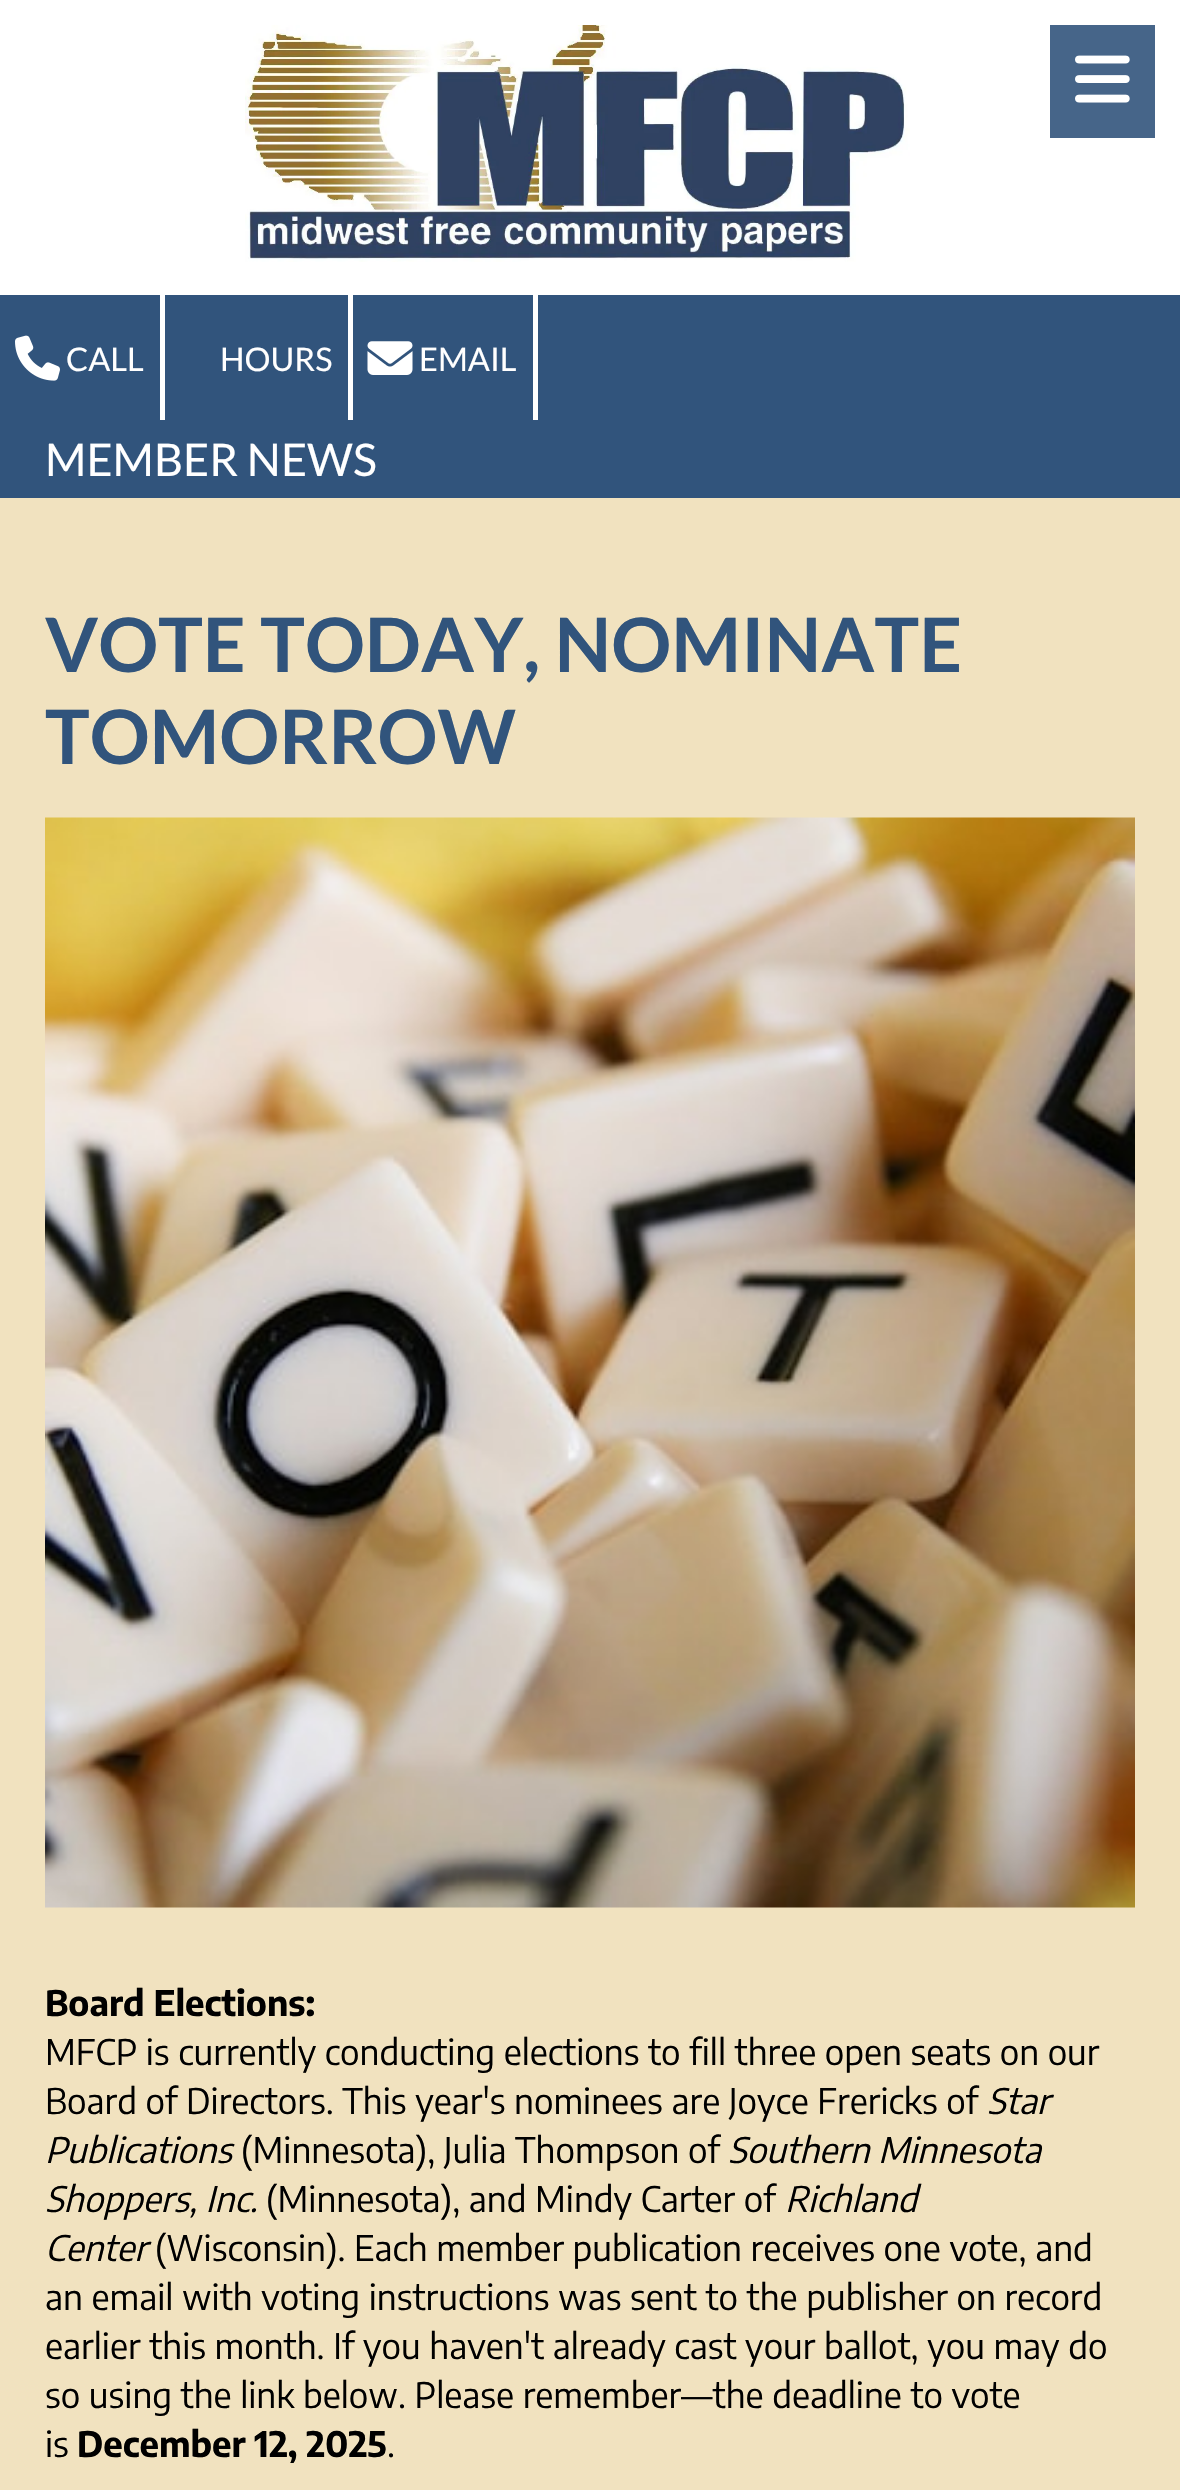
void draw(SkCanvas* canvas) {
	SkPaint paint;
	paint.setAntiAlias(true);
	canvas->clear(0xffffffff);
	canvas->drawImageRect(SkImages::DeferredFromEncodedData(SkData::MakeFromFileName("img1.png")), SkRect::MakeXYWH(245, 25, 665, 237), SkSamplingOptions());
	paint.setColor(0xff466589);
	canvas->drawRect(SkRect::MakeXYWH(1050, 25, 105, 113), paint);
	canvas->drawImageRect(SkImages::DeferredFromEncodedData(SkData::MakeFromFileName("img2.png")), SkRect::MakeXYWH(1075, 55, 55, 48), SkSamplingOptions());
	paint.setColor(0xff31547c);
	canvas->drawRect(SkRect::MakeXYWH(0, 295, 1180, 203), paint);
	paint.setColor(0xffffffff);
	canvas->drawRect(SkRect::MakeXYWH(160, 295, 5, 125), paint);
	canvas->drawImageRect(SkImages::DeferredFromEncodedData(SkData::MakeFromFileName("img3.png")), SkRect::MakeXYWH(15, 335, 45, 46), SkSamplingOptions());
	SkFont f1(fontMgr->matchFamilyStyle("Lato", SkFontStyle::Normal()), 32.5);
	f1.setSubpixel(true);
	canvas->drawString("CALL", 66, 371, f1, paint);
	canvas->drawRect(SkRect::MakeXYWH(348, 295, 5, 125), paint);
	canvas->drawString("HOURS", 220, 371, f1, paint);
	canvas->drawRect(SkRect::MakeXYWH(533, 295, 5, 125), paint);
	canvas->drawImageRect(SkImages::DeferredFromEncodedData(SkData::MakeFromFileName("img4.png")), SkRect::MakeXYWH(367, 341, 46, 34), SkSamplingOptions());
	canvas->drawString("EMAIL", 419, 371, f1, paint);
	SkFont f2(fontMgr->matchFamilyStyle("Lato", SkFontStyle::Normal()), 45);
	f2.setSubpixel(true);
	canvas->drawString("MEMBER NEWS", 45, 476, f2, paint);
	paint.setColor(0xfff1e2bf);
	canvas->drawRect(SkRect::MakeXYWH(0, 498, 1180, 1992), paint);
	SkFont f3(fontMgr->matchFamilyStyle("Lato", SkFontStyle::Bold()), 75);
	f3.setSubpixel(true);
	paint.setColor(0xff31547c);
	canvas->drawString("VOTE TODAY, NOMINATE", 45, 672, f3, paint);
	canvas->drawString("TOMORROW", 45, 764, f3, paint);
	canvas->drawImageRect(SkImages::DeferredFromEncodedData(SkData::MakeFromFileName("img5.png")), SkRect::MakeXYWH(45, 817, 1090, 1091), SkSamplingOptions());
	SkFont f4(fontMgr->matchFamilyStyle("Encode Sans Condensed", SkFontStyle::Bold()), 35);
	f4.setSubpixel(true);
	paint.setColor(0xff000000);
	canvas->drawString("Board Elections:", 45, 2016, f4, paint);
	SkFont f5(fontMgr->matchFamilyStyle("Encode Sans Condensed", SkFontStyle::Normal()), 35);
	f5.setSubpixel(true);
	canvas->drawString("MFCP is currently conducting elections to fill three open seats on our", 45, 2065, f5, paint);
	canvas->drawString("Board of Directors. This year's nominees are Joyce Frericks of", 45, 2114, f5, paint);
	SkFont f6(fontMgr->matchFamilyStyle("Encode Sans Condensed", SkFontStyle::Italic()), 35);
	f6.setSubpixel(true);
	canvas->drawString("Star", 987, 2114, f6, paint);
	canvas->drawString("Publications", 45, 2163, f6, paint);
	canvas->drawString("(Minnesota), Julia Thompson of", 241, 2163, f5, paint);
	canvas->drawString("Southern Minnesota", 728, 2163, f6, paint);
	canvas->drawString("Shoppers, Inc.", 45, 2212, f6, paint);
	canvas->drawString("(Minnesota), and Mindy Carter of", 266, 2212, f5, paint);
	canvas->drawString("Richland", 785, 2212, f6, paint);
	canvas->drawString("Center", 45, 2261, f6, paint);
	canvas->drawString("(Wisconsin). Each member publication receives one vote, and", 155, 2261, f5, paint);
	canvas->drawString("an email with voting instructions was sent to the publisher on record", 45, 2310, f5, paint);
	canvas->drawString("earlier this month. If you haven't already cast your ballot, you may do", 45, 2359, f5, paint);
	canvas->drawString("so using the link below. Please remember—the deadline to vote", 45, 2408, f5, paint);
	canvas->drawString("is", 45, 2457, f5, paint);
	canvas->drawString("December 12, 2025", 77, 2457, f4, paint);
	canvas->drawString(".", 387, 2457, f5, paint);
}
